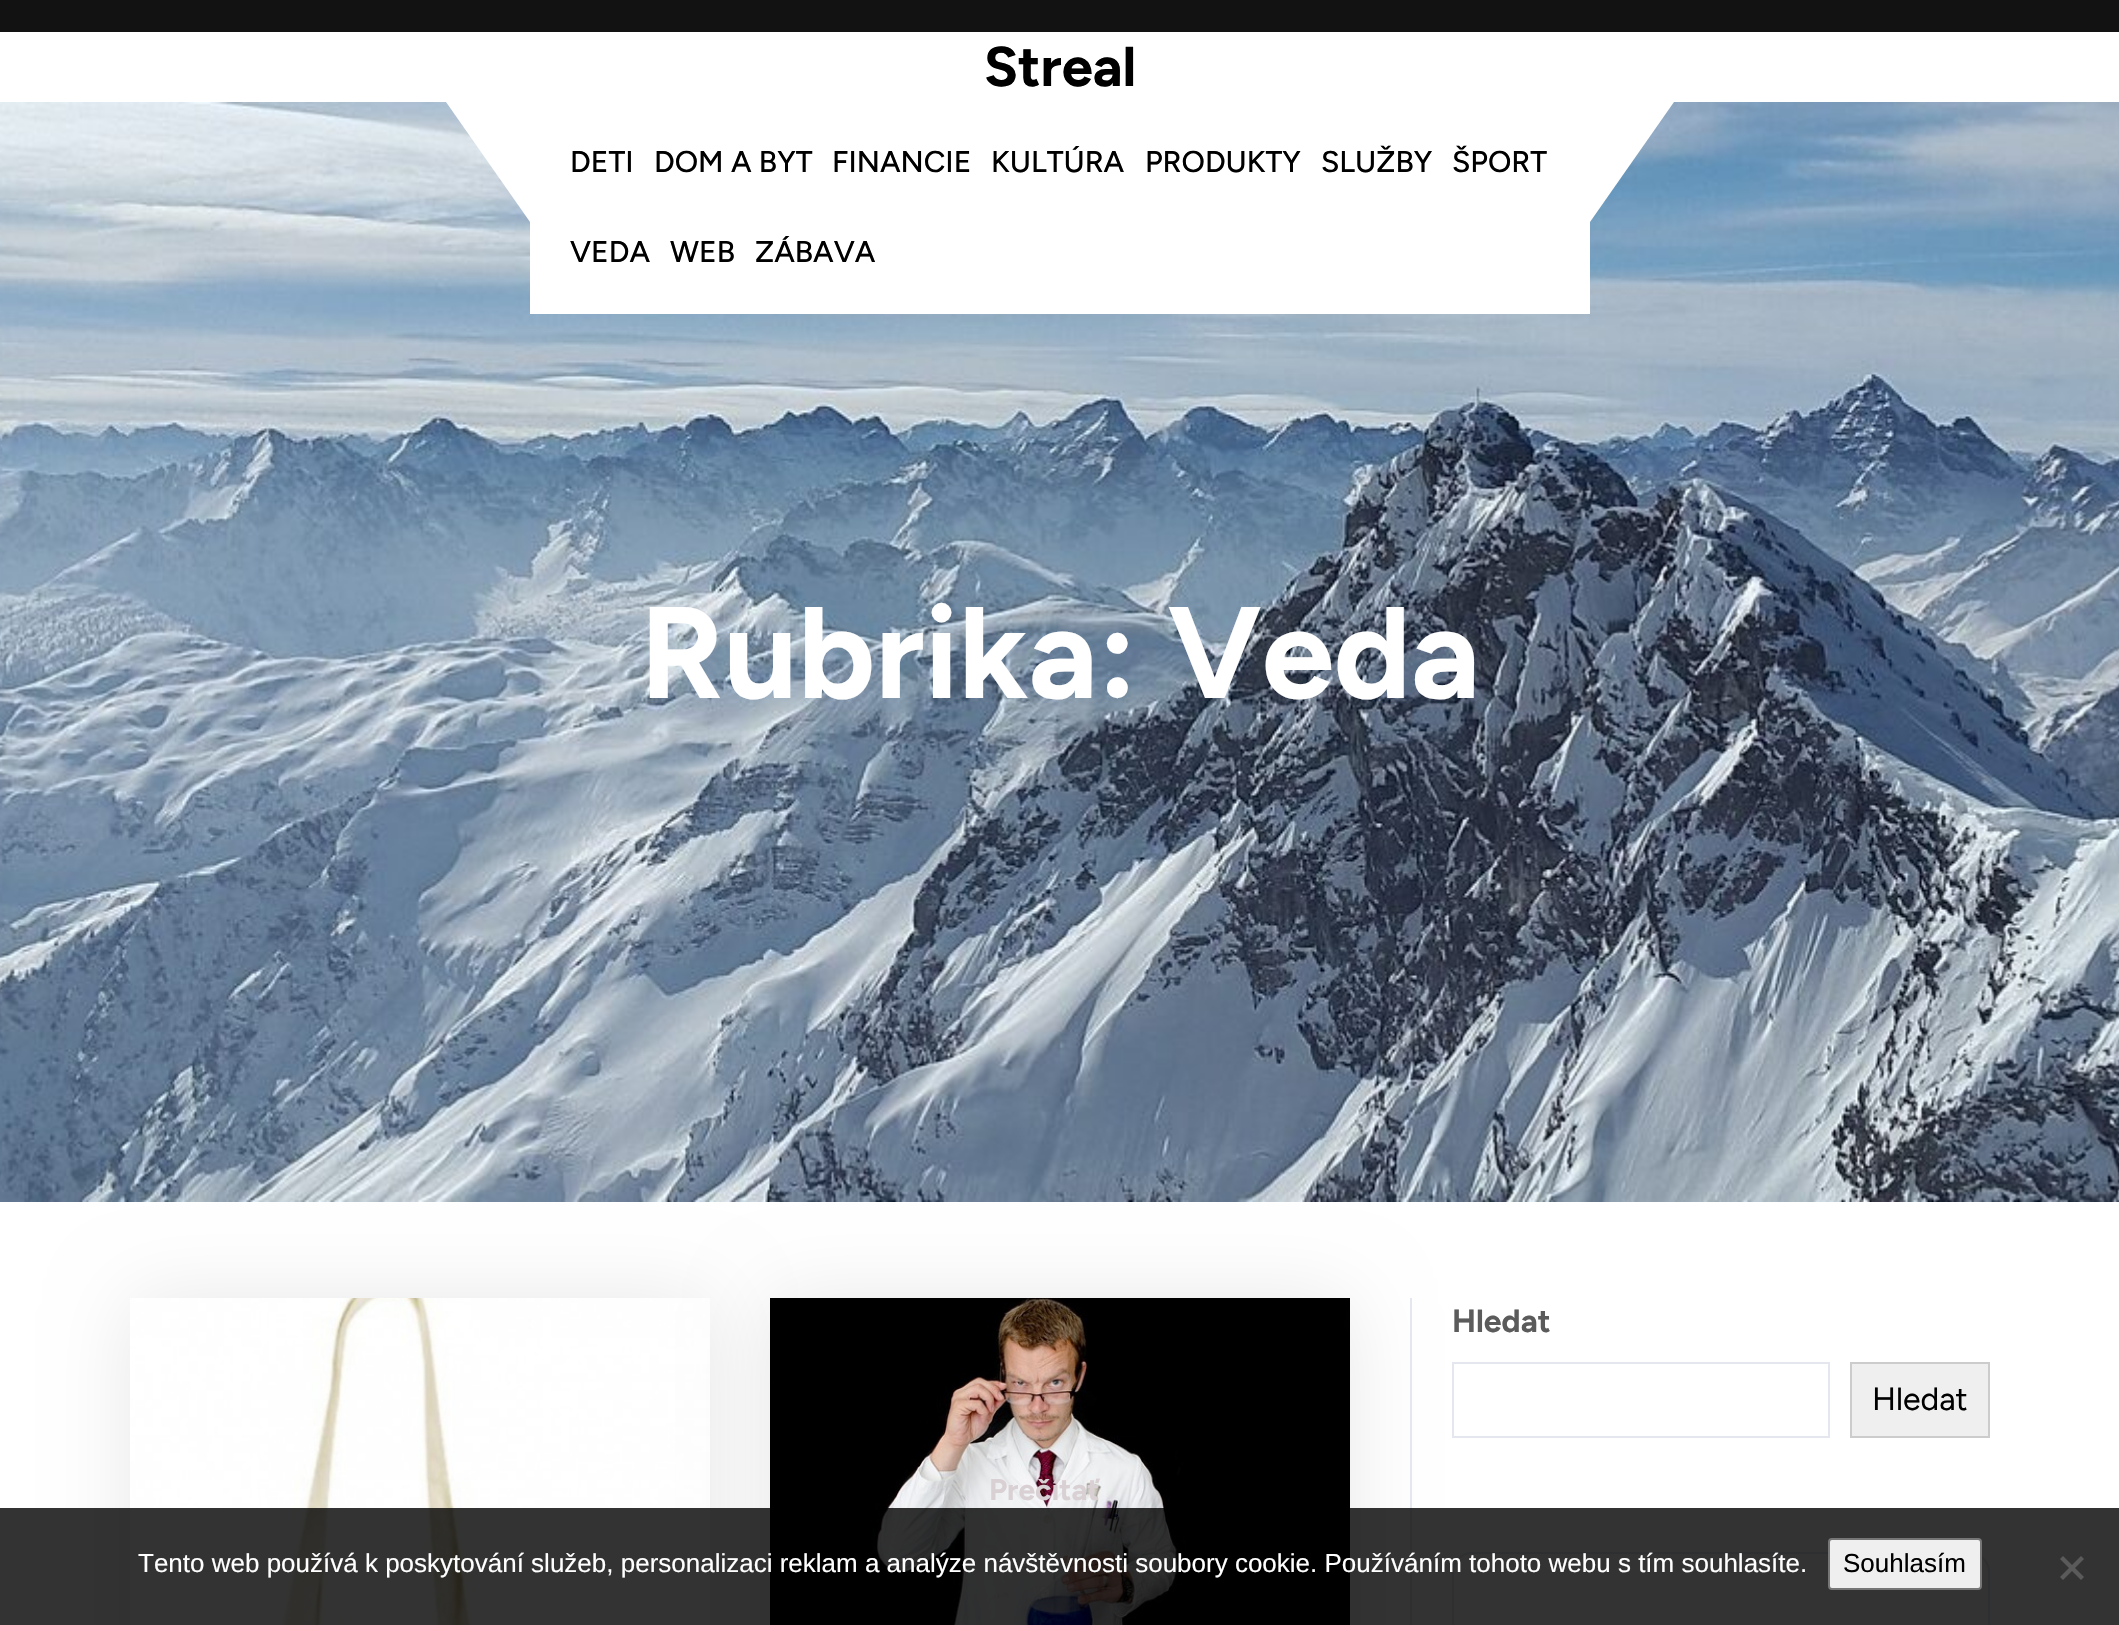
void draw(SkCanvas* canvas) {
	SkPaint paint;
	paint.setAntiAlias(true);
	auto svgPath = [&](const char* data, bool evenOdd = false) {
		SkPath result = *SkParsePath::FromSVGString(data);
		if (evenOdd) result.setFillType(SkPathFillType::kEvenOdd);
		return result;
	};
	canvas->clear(0xffffffff);
	paint.setColor(0xff121212);
	canvas->drawRect(SkRect::MakeXYWH(0, 0, 2119, 32), paint);
	SkFont f1(fontMgr->matchFamilyStyle("Figtree", SkFontStyle::Bold()), 56);
	f1.setSubpixel(true);
	paint.setColor(0xff000000);
	canvas->drawString("Streal", 984, 86, f1, paint);
	canvas->drawImageRect(SkImages::DeferredFromEncodedData(SkData::MakeFromFileName("img1.png")), SkRect::MakeXYWH(0, 102, 2119, 1100), SkSamplingOptions());
	paint.setColor(0xffffffff);
	canvas->drawRect(SkRect::MakeXYWH(530, 102, 1060, 212), paint);
	canvas->drawPath(svgPath("M446 102H530V222Z"), paint);
	SkFont f2(fontMgr->matchFamilyStyle("Figtree", SkFontStyle(500, SkFontStyle::kNormal_Width, SkFontStyle::kUpright_Slant)), 30);
	f2.setSubpixel(true);
	paint.setColor(0xff000000);
	canvas->drawString("DETI", 570, 172, f2, paint);
	canvas->drawString("DOM A BYT", 654, 172, f2, paint);
	canvas->drawString("FINANCIE", 832, 172, f2, paint);
	canvas->drawString("KULTÚRA", 991, 172, f2, paint);
	canvas->drawString("PRODUKTY", 1145, 172, f2, paint);
	canvas->drawString("SLUŽBY", 1321, 172, f2, paint);
	canvas->drawString("ŠPORT", 1452, 172, f2, paint);
	canvas->drawString("VEDA", 570, 262, f2, paint);
	canvas->drawString("WEB", 670, 262, f2, paint);
	canvas->drawString("ZÁBAVA", 755, 262, f2, paint);
	paint.setColor(0xffffffff);
	canvas->drawPath(svgPath("M1590 102H1674L1590 222Z"), paint);
	SkFont f3(fontMgr->matchFamilyStyle("Figtree", SkFontStyle::Bold()), 130);
	f3.setSubpixel(true);
	canvas->drawString("Rubrika: Veda", 640, 698, f3, paint);
	paint.setColor(0x17000000);
	paint.setMaskFilter(SkMaskFilter::MakeBlur(kNormal_SkBlurStyle, 40));
	canvas->drawRoundRect(SkRect::MakeXYWH(130, 1298, 580, 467), 20, 20, paint);
	paint.setMaskFilter(nullptr);
	canvas->drawImageRect(SkImages::DeferredFromEncodedData(SkData::MakeFromFileName("img2.png")), SkRect::MakeXYWH(130, 1298, 580, 327), SkSamplingOptions());
	paint.setMaskFilter(SkMaskFilter::MakeBlur(kNormal_SkBlurStyle, 40));
	canvas->drawRoundRect(SkRect::MakeXYWH(770, 1298, 580, 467), 20, 20, paint);
	paint.setMaskFilter(nullptr);
	paint.setColor(0xffe4e7ee);
	canvas->drawRect(SkRect::MakeXYWH(1410, 1298, 2, 327), paint);
	SkFont f4(fontMgr->matchFamilyStyle("Figtree", SkFontStyle::Bold()), 32);
	f4.setSubpixel(true);
	paint.setColor(0xff5b5b5b);
	canvas->drawString("Hledat", 1452, 1332, f4, paint);
	paint.setStroke(true);
	paint.setStrokeWidth(2);
	paint.setColor(0xffe4e7ee);
	canvas->drawRect(SkRect::MakeXYWH(1453, 1363, 376, 74), paint);
	paint.setStroke(false);
	paint.setColor(0xffefefef);
	canvas->drawRect(SkRect::MakeXYWH(1851, 1363, 138, 74), paint);
	paint.setStroke(true);
	paint.setColor(0xffcccccc);
	canvas->drawRect(SkRect::MakeXYWH(1851, 1363, 138, 74), paint);
	SkFont f5(fontMgr->matchFamilyStyle("Figtree", SkFontStyle::Normal()), 32);
	f5.setSubpixel(true);
	paint.setStroke(false);
	paint.setColor(0xff000000);
	canvas->drawString("Hledat", 1872, 1410, f5, paint);
	paint.setStroke(true);
	paint.setColor(0xffe4e7ee);
	canvas->drawRoundRect(SkRect::MakeXYWH(1453, 1553, 536, 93), 19, 19, paint);
	canvas->drawImageRect(SkImages::DeferredFromEncodedData(SkData::MakeFromFileName("img3.png")), SkRect::MakeXYWH(770, 1298, 580, 327), SkSamplingOptions());
	SkFont f6(fontMgr->matchFamilyStyle("Figtree", SkFontStyle::Bold()), 30);
	f6.setSubpixel(true);
	paint.setStroke(false);
	paint.setColor(0xffd9d0d4);
	canvas->drawString("Prečítať", 989, 1500, f6, paint);
	paint.setColor(0xcc000000);
	canvas->drawRect(SkRect::MakeXYWH(0, 1508, 2119, 117), paint);
	SkFont f7(fontMgr->matchFamilyStyle("Liberation Sans", SkFontStyle::Normal()), 26);
	f7.setSubpixel(true);
	paint.setColor(0xffffffff);
	canvas->drawString("Tento web používá k poskytování služeb, personalizaci reklam a analýze návštěvnosti soubory cookie. Používáním tohoto webu s tím souhlasíte.", 138, 1572, f7, paint);
	paint.setColor(0xffefefef);
	canvas->drawRoundRect(SkRect::MakeXYWH(1829, 1539, 152, 50), 3, 3, paint);
	paint.setStroke(true);
	paint.setColor(0xff767676);
	canvas->drawRoundRect(SkRect::MakeXYWH(1829, 1539, 152, 50), 3, 3, paint);
	paint.setStroke(false);
	paint.setColor(0xff000000);
	canvas->drawString("Souhlasím", 1843, 1572, f7, paint);
	paint.setColor(0xff5a5a5a);
	canvas->drawPath(svgPath("M2081 1556L2084 1559L2063 1580L2060 1577Z"), paint);
	canvas->drawPath(svgPath("M2060 1559L2063 1556L2084 1577L2081 1580Z"), paint);
}
